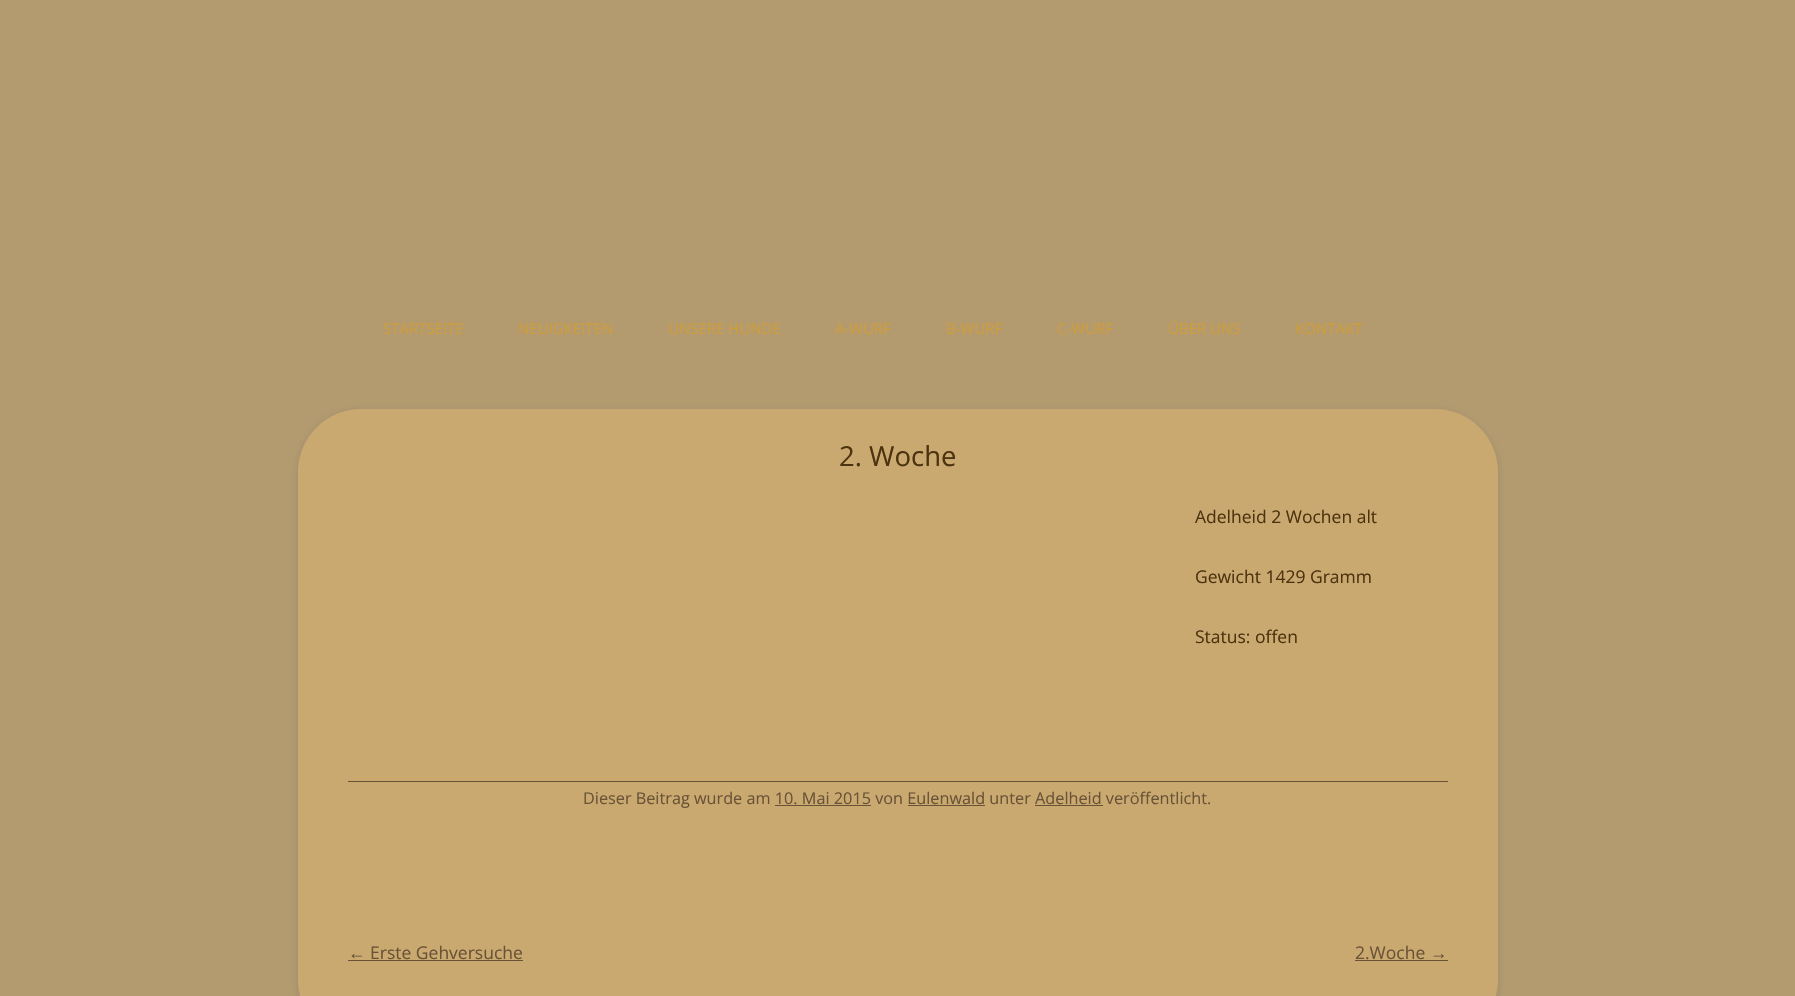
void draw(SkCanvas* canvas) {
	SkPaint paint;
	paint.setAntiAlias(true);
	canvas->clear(0xffb39b6f);
	SkFont f1(fontMgr->matchFamilyStyle("Open Sans", SkFontStyle::Normal()), 15);
	f1.setSubpixel(true);
	paint.setColor(0xffcf9d3b);
	canvas->drawString("STARTSEITE", 383, 334, f1, paint);
	canvas->drawString("NEUIGKEITEN", 518, 334, f1, paint);
	canvas->drawString("UNSERE HUNDE", 668, 334, f1, paint);
	canvas->drawString("A-WURF", 835, 334, f1, paint);
	canvas->drawString("B-WURF", 946, 334, f1, paint);
	canvas->drawString("C-WURF", 1057, 334, f1, paint);
	canvas->drawString("ÜBER UNS", 1168, 334, f1, paint);
	canvas->drawString("KONTAKT", 1295, 334, f1, paint);
	paint.setColor(0x4d646464);
	paint.setMaskFilter(SkMaskFilter::MakeBlur(kNormal_SkBlurStyle, 4));
	canvas->drawRoundRect(SkRect::MakeXYWH(298, 411, 1200, 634), 63, 63, paint);
	paint.setMaskFilter(nullptr);
	paint.setColor(0xffcaa970);
	canvas->drawRoundRect(SkRect::MakeXYWH(298, 409, 1200, 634), 63, 63, paint);
	SkFont f2(fontMgr->matchFamilyStyle("Open Sans", SkFontStyle::Normal()), 27.5);
	f2.setSubpixel(true);
	paint.setColor(0xff4c330f);
	canvas->drawString("2. Woche", 839, 466, f2, paint);
	SkFont f3(fontMgr->matchFamilyStyle("Open Sans", SkFontStyle::Normal()), 17.5);
	f3.setSubpixel(true);
	canvas->drawString("Adelheid 2 Wochen alt", 1195, 523, f3, paint);
	canvas->drawString("Gewicht 1429 Gramm", 1195, 583, f3, paint);
	canvas->drawString("Status: offen", 1195, 643, f3, paint);
	paint.setColor(0xff695337);
	canvas->drawRect(SkRect::MakeXYWH(348, 781, 1100, 1), paint);
	SkFont f4(fontMgr->matchFamilyStyle("Open Sans", SkFontStyle::Normal()), 16.25);
	f4.setSubpixel(true);
	canvas->drawString("Dieser Beitrag wurde am 10. Mai 2015 von Eulenwald unter Adelheid veröffentlicht.", 583, 804, f4, paint);
	canvas->drawRect(SkRect::MakeXYWH(775, 805, 96, 1), paint);
	canvas->drawRect(SkRect::MakeXYWH(908, 805, 77, 1), paint);
	canvas->drawRect(SkRect::MakeXYWH(1035, 805, 68, 1), paint);
	SkFont f5(fontMgr->matchFamilyStyle("Liberation Sans", SkFontStyle::Normal()), 17.5);
	f5.setSubpixel(true);
	canvas->drawString("←", 348, 959, f5, paint);
	canvas->drawRect(SkRect::MakeXYWH(348, 960, 175, 1), paint);
	canvas->drawString("Erste Gehversuche", 370, 959, f3, paint);
	canvas->drawString("2.Woche", 1355, 959, f3, paint);
	canvas->drawString("→", 1430, 959, f5, paint);
	canvas->drawRect(SkRect::MakeXYWH(1355, 960, 93, 1), paint);
}
